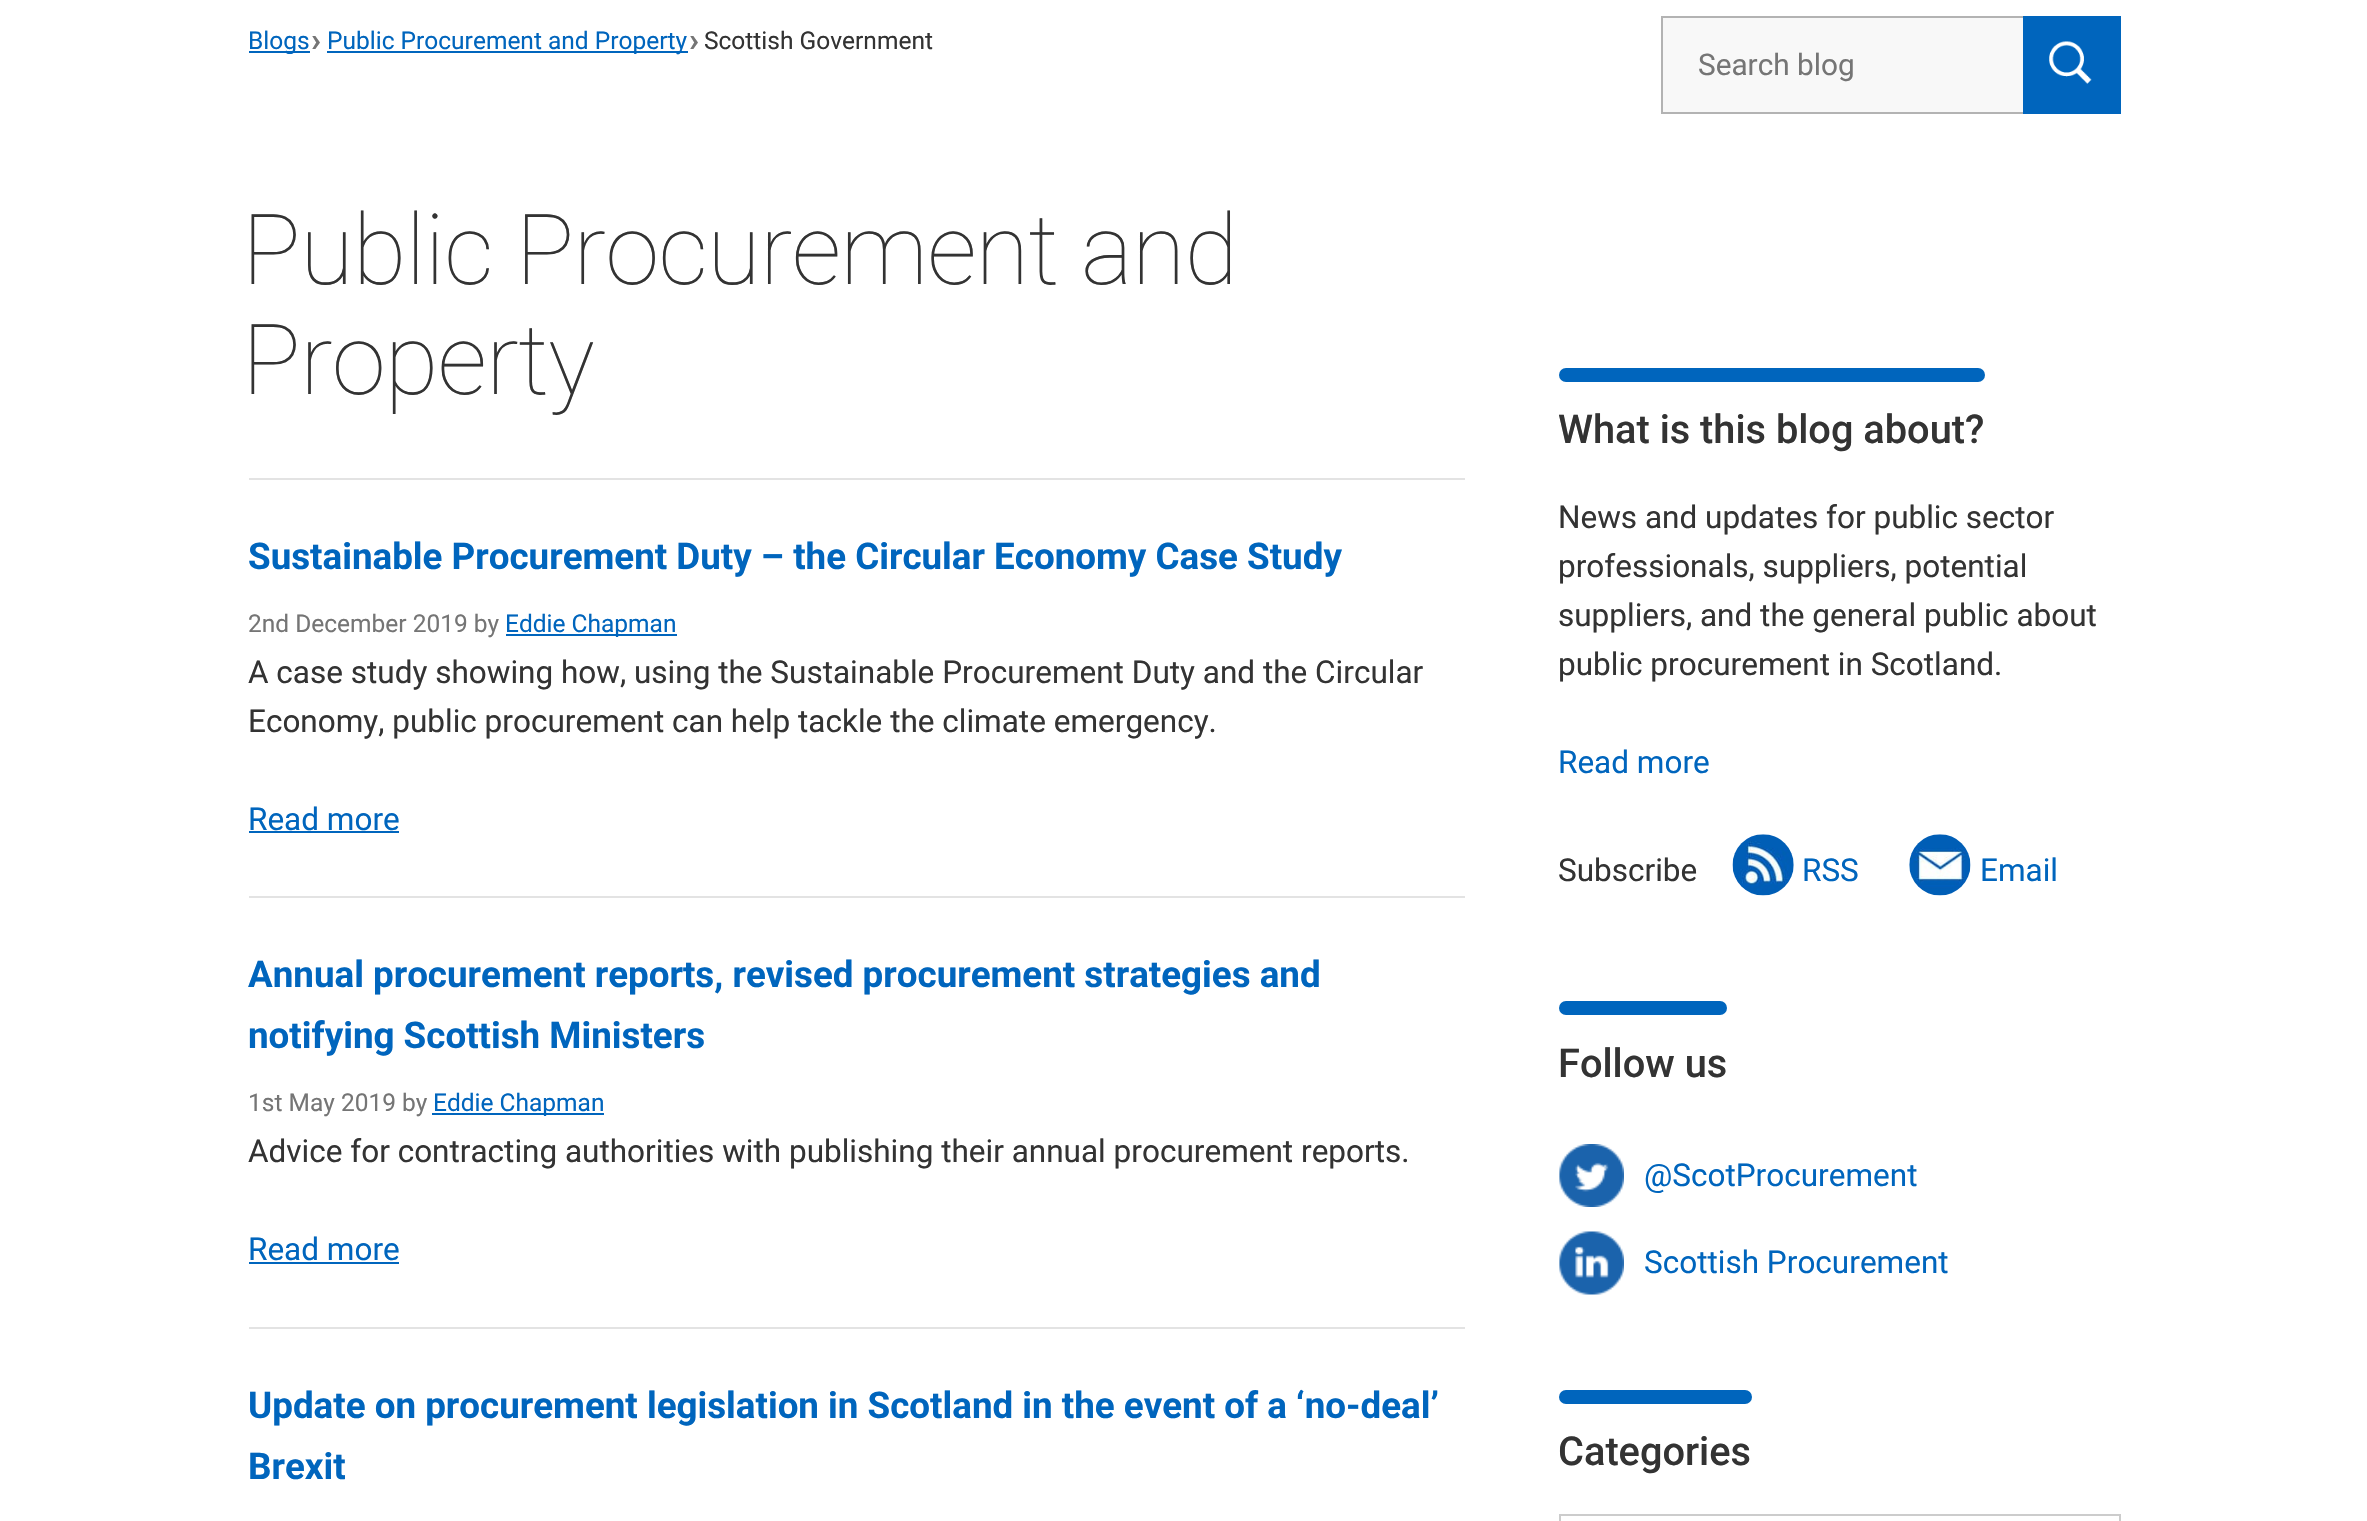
void draw(SkCanvas* canvas) {
	SkPaint paint;
	paint.setAntiAlias(true);
	auto spacedText = [&](const char* s, float x, float y, const SkFont& font, const SkPaint& ink, float letter, float word) {
		std::vector<SkGlyphID> glyphs(font.countText(s, strlen(s), SkTextEncoding::kUTF8));
		std::vector<float> xs(glyphs.size());
		font.textToGlyphs(s, strlen(s), SkTextEncoding::kUTF8, glyphs);
		font.getXPos(glyphs, xs, x);
		float extra = 0;
		for (size_t i = 0; i < glyphs.size(); i++) {
			xs[i] += extra;
			extra += letter + word * (glyphs[i] == font.unicharToGlyph(' '));
		}
		canvas->drawTextBlob(SkTextBlob::MakeFromPosHGlyphs(glyphs, xs, y, font), 0, 0, ink);
	};
	canvas->clear(0xffffffff);
	paint.setColor(0xff0065bd);
	canvas->drawRect(SkRect::MakeXYWH(249, 51, 61, 2), paint);
	SkFont f1(fontMgr->matchFamilyStyle("Roboto", SkFontStyle::Normal()), 24.5);
	f1.setSubpixel(true);
	canvas->drawString("Blogs", 248, 49, f1, paint);
	SkFont f2(fontMgr->matchFamilyStyle("Roboto", SkFontStyle::Bold()), 33);
	f2.setSubpixel(true);
	paint.setColor(0xff757575);
	canvas->drawString("›", 311, 51, f2, paint);
	paint.setColor(0xff0065bd);
	canvas->drawRect(SkRect::MakeXYWH(327, 51, 361, 2), paint);
	canvas->drawString("Public Procurement and Property", 327, 49, f1, paint);
	paint.setColor(0xff757575);
	canvas->drawString("›", 689, 51, f2, paint);
	paint.setColor(0xff333333);
	canvas->drawString("Scottish Government", 704, 49, f1, paint);
	paint.setColor(0xfff8f8f8);
	canvas->drawRect(SkRect::MakeXYWH(1663, 18, 360, 94), paint);
	paint.setColor(0xffb3b3b3);
	canvas->drawRect(SkRect::MakeXYWH(1661, 16, 362, 2), paint);
	canvas->drawRect(SkRect::MakeXYWH(1661, 112, 362, 2), paint);
	canvas->drawRect(SkRect::MakeXYWH(1661, 16, 2, 98), paint);
	SkFont f3(fontMgr->matchFamilyStyle("Roboto", SkFontStyle::Normal()), 29.75);
	f3.setSubpixel(true);
	paint.setColor(0xff757575);
	canvas->drawString("Search blog", 1698, 75, f3, paint);
	paint.setColor(0xff0065bd);
	canvas->drawRect(SkRect::MakeXYWH(2023, 16, 98, 98), paint);
	canvas->drawImageRect(SkImages::DeferredFromEncodedData(SkData::MakeFromFileName("img1.png")), SkRect::MakeXYWH(2049, 41, 43, 43), SkSamplingOptions());
	SkFont f4(fontMgr->matchFamilyStyle("Roboto", SkFontStyle(100, SkFontStyle::kNormal_Width, SkFontStyle::kUpright_Slant)), 98);
	f4.setSubpixel(true);
	paint.setColor(0xff333333);
	spacedText("Public Procurement and", 242, 284, f4, paint, -0.9, 0);
	spacedText("Property", 242, 394, f4, paint, -0.9, 0);
	paint.setColor(0xffe3e3e3);
	canvas->drawRect(SkRect::MakeXYWH(249, 478, 1216, 2), paint);
	SkFont f5(fontMgr->matchFamilyStyle("Roboto", SkFontStyle::Bold()), 36.75);
	f5.setSubpixel(true);
	paint.setColor(0xff0065bd);
	canvas->drawString("Sustainable Procurement Duty – the Circular Economy Case Study", 248, 569, f5, paint);
	paint.setColor(0xff757575);
	canvas->drawString("2nd December 2019 by", 248, 632, f1, paint);
	paint.setColor(0xff0065bd);
	canvas->drawRect(SkRect::MakeXYWH(506, 634, 171, 2), paint);
	canvas->drawString("Eddie Chapman", 505, 632, f1, paint);
	SkFont f6(fontMgr->matchFamilyStyle("Roboto", SkFontStyle::Normal()), 31.5);
	f6.setSubpixel(true);
	paint.setColor(0xff333333);
	canvas->drawString("A case study showing how, using the Sustainable Procurement Duty and the Circular", 248, 683, f6, paint);
	canvas->drawString("Economy, public procurement can help tackle the climate emergency.", 248, 732, f6, paint);
	paint.setColor(0xff0065bd);
	canvas->drawString("Read more", 248, 830, f6, paint);
	canvas->drawRect(SkRect::MakeXYWH(249, 831, 150, 2), paint);
	paint.setColor(0xffe3e3e3);
	canvas->drawRect(SkRect::MakeXYWH(249, 896, 1216, 2), paint);
	paint.setColor(0xff0065bd);
	canvas->drawString("Annual procurement reports, revised procurement strategies and", 248, 987, f5, paint);
	canvas->drawString("notifying Scottish Ministers", 248, 1048, f5, paint);
	paint.setColor(0xff757575);
	canvas->drawString("1st May 2019 by", 248, 1111, f1, paint);
	paint.setColor(0xff0065bd);
	canvas->drawRect(SkRect::MakeXYWH(432, 1113, 172, 2), paint);
	canvas->drawString("Eddie Chapman", 433, 1111, f1, paint);
	paint.setColor(0xff333333);
	canvas->drawString("Advice for contracting authorities with publishing their annual procurement reports.", 248, 1162, f6, paint);
	paint.setColor(0xff0065bd);
	canvas->drawString("Read more", 248, 1260, f6, paint);
	canvas->drawRect(SkRect::MakeXYWH(249, 1262, 150, 2), paint);
	paint.setColor(0xffe3e3e3);
	canvas->drawRect(SkRect::MakeXYWH(249, 1327, 1216, 2), paint);
	paint.setColor(0xff0065bd);
	canvas->drawString("Update on procurement legislation in Scotland in the event of a ‘no-deal’", 248, 1418, f5, paint);
	canvas->drawString("Brexit", 248, 1479, f5, paint);
	canvas->drawRoundRect(SkRect::MakeXYWH(1559, 368, 426, 14), 7, 7, paint);
	SkFont f7(fontMgr->matchFamilyStyle("Roboto", SkFontStyle(500, SkFontStyle::kNormal_Width, SkFontStyle::kUpright_Slant)), 39.75);
	f7.setSubpixel(true);
	paint.setColor(0xff333333);
	canvas->drawString("What is this blog about?", 1558, 443, f7, paint);
	canvas->drawString("News and updates for public sector", 1558, 528, f6, paint);
	canvas->drawString("professionals, suppliers, potential", 1558, 577, f6, paint);
	canvas->drawString("suppliers, and the general public about", 1558, 626, f6, paint);
	canvas->drawString("public procurement in Scotland.", 1558, 675, f6, paint);
	paint.setColor(0xff0065bd);
	canvas->drawString("Read more", 1558, 773, f6, paint);
	paint.setColor(0xff333333);
	canvas->drawString("Subscribe", 1558, 881, f6, paint);
	canvas->drawImageRect(SkImages::DeferredFromEncodedData(SkData::MakeFromFileName("img2.png")), SkRect::MakeXYWH(1732, 834, 62, 62), SkSamplingOptions());
	paint.setColor(0xff0065bd);
	canvas->drawString("RSS", 1802, 881, f6, paint);
	canvas->drawImageRect(SkImages::DeferredFromEncodedData(SkData::MakeFromFileName("img3.png")), SkRect::MakeXYWH(1909, 834, 62, 62), SkSamplingOptions());
	canvas->drawString("Email", 1980, 881, f6, paint);
	canvas->drawRoundRect(SkRect::MakeXYWH(1559, 1001, 168, 14), 7, 7, paint);
	paint.setColor(0xff333333);
	canvas->drawString("Follow us", 1558, 1077, f7, paint);
	canvas->drawImageRect(SkImages::DeferredFromEncodedData(SkData::MakeFromFileName("img4.png")), SkRect::MakeXYWH(1559, 1144, 65, 63), SkSamplingOptions());
	paint.setColor(0xff0065bd);
	canvas->drawString("@ScotProcurement", 1644, 1186, f6, paint);
	canvas->drawImageRect(SkImages::DeferredFromEncodedData(SkData::MakeFromFileName("img5.png")), SkRect::MakeXYWH(1559, 1231, 65, 64), SkSamplingOptions());
	canvas->drawString("Scottish Procurement", 1644, 1273, f6, paint);
	canvas->drawRoundRect(SkRect::MakeXYWH(1559, 1390, 193, 14), 7, 7, paint);
	paint.setColor(0xff333333);
	canvas->drawString("Categories", 1558, 1465, f7, paint);
	paint.setStroke(true);
	paint.setStrokeWidth(2);
	paint.setColor(0xffcccccc);
	canvas->drawRect(SkRect::MakeXYWH(1560, 1515, 560, 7), paint);
}
